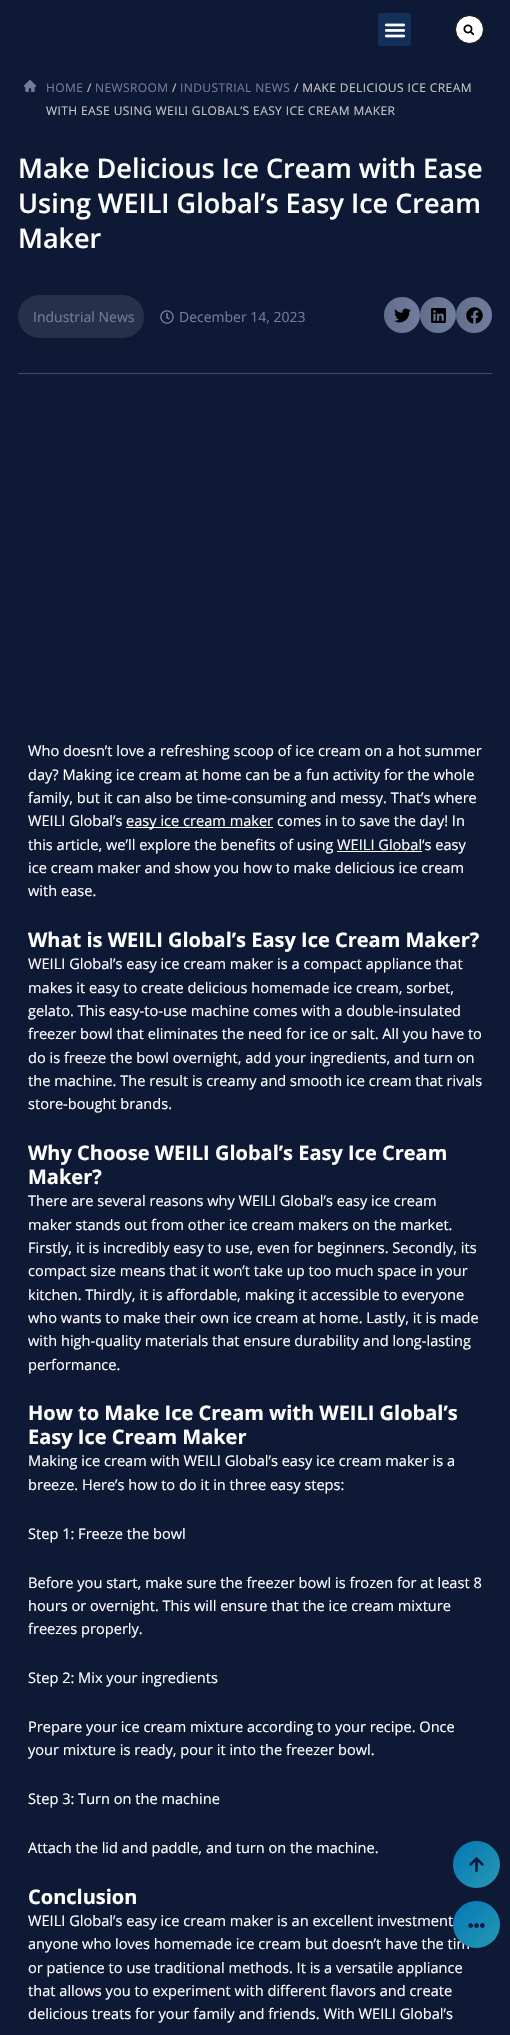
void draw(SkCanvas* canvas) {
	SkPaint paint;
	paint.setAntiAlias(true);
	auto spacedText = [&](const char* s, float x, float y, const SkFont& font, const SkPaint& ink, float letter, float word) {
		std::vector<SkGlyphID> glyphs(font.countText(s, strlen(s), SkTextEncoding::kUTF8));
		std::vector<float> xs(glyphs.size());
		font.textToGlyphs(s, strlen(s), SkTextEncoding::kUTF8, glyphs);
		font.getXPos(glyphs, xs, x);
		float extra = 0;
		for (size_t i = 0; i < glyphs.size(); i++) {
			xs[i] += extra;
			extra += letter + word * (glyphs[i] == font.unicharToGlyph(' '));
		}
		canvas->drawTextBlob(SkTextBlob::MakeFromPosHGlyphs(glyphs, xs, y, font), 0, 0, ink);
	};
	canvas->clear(0xff0e1936);
	paint.setColor(0xff13305a);
	canvas->drawRoundRect(SkRect::MakeXYWH(378, 13, 33, 33), 3, 3, paint);
	canvas->drawImageRect(SkImages::DeferredFromEncodedData(SkData::MakeFromFileName("img1.png")), SkRect::MakeXYWH(384, 23, 22, 15), SkSamplingOptions());
	paint.setColor(0xffffffff);
	canvas->drawCircle(469.5, 29.5, 14, paint);
	paint.setStroke(true);
	paint.setStrokeWidth(1);
	paint.setColor(0xff000000);
	canvas->drawCircle(469.5, 29.5, 14, paint);
	canvas->drawImageRect(SkImages::DeferredFromEncodedData(SkData::MakeFromFileName("img2.png")), SkRect::MakeXYWH(463, 24, 11, 11), SkSamplingOptions());
	canvas->drawImageRect(SkImages::DeferredFromEncodedData(SkData::MakeFromFileName("img3.png")), SkRect::MakeXYWH(24, 80, 12, 12), SkSamplingOptions());
	SkFont f1(fontMgr->matchFamilyStyle("Open Sans", SkFontStyle::Normal()), 12);
	f1.setSubpixel(true);
	paint.setStroke(false);
	paint.setColor(0xff707d9f);
	spacedText("HOME", 46, 92, f1, paint, 0.4, 0);
	paint.setColor(0xffc4c4c4);
	spacedText("/", 87, 92, f1, paint, 0.4, 0);
	paint.setColor(0xff707d9f);
	spacedText("NEWSROOM", 95, 92, f1, paint, 0.4, 0);
	paint.setColor(0xffc4c4c4);
	spacedText("/", 172, 92, f1, paint, 0.4, 0);
	paint.setColor(0xff707d9f);
	spacedText("INDUSTRIAL NEWS", 180, 92, f1, paint, 0.4, 0);
	paint.setColor(0xffc4c4c4);
	spacedText("/ MAKE DELICIOUS ICE CREAM", 294, 92, f1, paint, 0.4, 0);
	spacedText("WITH EASE USING WEILI GLOBAL’S EASY ICE CREAM MAKER", 46, 115, f1, paint, 0.4, 0);
	SkFont f2(fontMgr->matchFamilyStyle("Open Sans", SkFontStyle(600, SkFontStyle::kNormal_Width, SkFontStyle::kUpright_Slant)), 27);
	f2.setSubpixel(true);
	paint.setColor(0xffffffff);
	canvas->drawString("Make Delicious Ice Cream with Ease", 18, 178, f2, paint);
	canvas->drawString("Using WEILI Global’s Easy Ice Cream", 18, 213, f2, paint);
	canvas->drawString("Maker", 18, 248, f2, paint);
	paint.setColor(0xff27304a);
	canvas->drawRoundRect(SkRect::MakeXYWH(18, 295, 126, 43), 21.5, 21.5, paint);
	SkFont f3(fontMgr->matchFamilyStyle("Open Sans", SkFontStyle::Normal()), 14);
	f3.setSubpixel(true);
	paint.setColor(0xff707d9f);
	canvas->drawString("Industrial News", 33, 322, f3, paint);
	canvas->drawImageRect(SkImages::DeferredFromEncodedData(SkData::MakeFromFileName("img4.png")), SkRect::MakeXYWH(160, 310, 14, 14), SkSamplingOptions());
	canvas->drawString("December 14, 2023", 179, 322, f3, paint);
	canvas->drawCircle(402, 315, 18, paint);
	{
		const SkColor colors[] = {0x1f000000, 0x00000000};
		const float stops[] = {0, 1};
		const SkPoint ends[] = {{384, 315}, {420, 315}};
		paint.setShader(SkGradientShader::MakeLinear(ends, colors, stops, 2, SkTileMode::kClamp));
		paint.setAlpha(255);
	}
	canvas->drawCircle(402, 315, 18, paint);
	canvas->drawImageRect(SkImages::DeferredFromEncodedData(SkData::MakeFromFileName("img5.png")), SkRect::MakeXYWH(394, 308, 17, 15), SkSamplingOptions());
	paint.setShader(nullptr);
	paint.setColor(0xff707d9f);
	canvas->drawCircle(438, 315, 18, paint);
	{
		const SkColor colors[] = {0x1f000000, 0x00000000};
		const float stops[] = {0, 1};
		const SkPoint ends[] = {{420, 315}, {456, 315}};
		paint.setShader(SkGradientShader::MakeLinear(ends, colors, stops, 2, SkTileMode::kClamp));
		paint.setAlpha(255);
	}
	canvas->drawCircle(438, 315, 18, paint);
	canvas->drawImageRect(SkImages::DeferredFromEncodedData(SkData::MakeFromFileName("img6.png")), SkRect::MakeXYWH(431, 308, 15, 15), SkSamplingOptions());
	paint.setShader(nullptr);
	paint.setColor(0xff707d9f);
	canvas->drawCircle(474, 315, 18, paint);
	{
		const SkColor colors[] = {0x1f000000, 0x00000000};
		const float stops[] = {0, 1};
		const SkPoint ends[] = {{456, 315}, {492, 315}};
		paint.setShader(SkGradientShader::MakeLinear(ends, colors, stops, 2, SkTileMode::kClamp));
		paint.setAlpha(255);
	}
	canvas->drawCircle(474, 315, 18, paint);
	canvas->drawImageRect(SkImages::DeferredFromEncodedData(SkData::MakeFromFileName("img7.png")), SkRect::MakeXYWH(466, 307, 17, 17), SkSamplingOptions());
	paint.setShader(nullptr);
	paint.setColor(0xff3f4b6b);
	canvas->drawRect(SkRect::MakeXYWH(18, 373, 474, 1), paint);
	SkFont f4(fontMgr->matchFamilyStyle("Open Sans", SkFontStyle::Normal()), 14.6);
	f4.setSubpixel(true);
	paint.setColor(0xffffffff);
	canvas->drawString("Who doesn’t love a refreshing scoop of ice cream on a hot summer", 28, 756, f4, paint);
	canvas->drawString("day? Making ice cream at home can be a fun activity for the whole", 28, 780, f4, paint);
	canvas->drawString("family, but it can also be time-consuming and messy. That’s where", 28, 803, f4, paint);
	canvas->drawString("WEILI Global’s", 28, 826, f4, paint);
	canvas->drawRect(SkRect::MakeXYWH(126, 827, 147, 1), paint);
	canvas->drawString("easy ice cream maker comes in to save the day! In", 126, 826, f4, paint);
	canvas->drawString("this article, we’ll explore the benefits of using WEILI Global", 28, 850, f4, paint);
	canvas->drawRect(SkRect::MakeXYWH(337, 851, 85, 1), paint);
	canvas->drawString("‘s easy", 422, 850, f4, paint);
	canvas->drawString("ice cream maker and show you how to make delicious ice cream", 28, 873, f4, paint);
	canvas->drawString("with ease.", 28, 896, f4, paint);
	SkFont f5(fontMgr->matchFamilyStyle("Open Sans", SkFontStyle::Bold()), 20);
	f5.setSubpixel(true);
	canvas->drawString("What is WEILI Global’s Easy Ice Cream Maker?", 28, 947, f5, paint);
	canvas->drawString("WEILI Global’s easy ice cream maker is a compact appliance that", 28, 969, f4, paint);
	canvas->drawString("makes it easy to create delicious homemade ice cream, sorbet,", 28, 993, f4, paint);
	canvas->drawString("gelato. This easy-to-use machine comes with a double-insulated", 28, 1016, f4, paint);
	canvas->drawString("freezer bowl that eliminates the need for ice or salt. All you have to", 28, 1039, f4, paint);
	canvas->drawString("do is freeze the bowl overnight, add your ingredients, and turn on", 28, 1063, f4, paint);
	canvas->drawString("the machine. The result is creamy and smooth ice cream that rivals", 28, 1086, f4, paint);
	canvas->drawString("store-bought brands.", 28, 1109, f4, paint);
	canvas->drawString("Why Choose WEILI Global’s Easy Ice Cream", 28, 1160, f5, paint);
	canvas->drawString("Maker?", 28, 1184, f5, paint);
	canvas->drawString("There are several reasons why WEILI Global’s easy ice cream", 28, 1206, f4, paint);
	canvas->drawString("maker stands out from other ice cream makers on the market.", 28, 1230, f4, paint);
	canvas->drawString("Firstly, it is incredibly easy to use, even for beginners. Secondly, its", 28, 1253, f4, paint);
	canvas->drawString("compact size means that it won’t take up too much space in your", 28, 1276, f4, paint);
	canvas->drawString("kitchen. Thirdly, it is affordable, making it accessible to everyone", 28, 1300, f4, paint);
	canvas->drawString("who wants to make their own ice cream at home. Lastly, it is made", 28, 1323, f4, paint);
	canvas->drawString("with high-quality materials that ensure durability and long-lasting", 28, 1346, f4, paint);
	canvas->drawString("performance.", 28, 1370, f4, paint);
	canvas->drawString("How to Make Ice Cream with WEILI Global’s", 28, 1420, f5, paint);
	canvas->drawString("Easy Ice Cream Maker", 28, 1444, f5, paint);
	canvas->drawString("Making ice cream with WEILI Global’s easy ice cream maker is a", 28, 1466, f4, paint);
	canvas->drawString("breeze. Here’s how to do it in three easy steps:", 28, 1490, f4, paint);
	canvas->drawString("Step 1: Freeze the bowl", 28, 1539, f4, paint);
	canvas->drawString("Before you start, make sure the freezer bowl is frozen for at least 8", 28, 1588, f4, paint);
	canvas->drawString("hours or overnight. This will ensure that the ice cream mixture", 28, 1611, f4, paint);
	canvas->drawString("freezes properly.", 28, 1634, f4, paint);
	canvas->drawString("Step 2: Mix your ingredients", 28, 1683, f4, paint);
	canvas->drawString("Prepare your ice cream mixture according to your recipe. Once", 28, 1732, f4, paint);
	canvas->drawString("your mixture is ready, pour it into the freezer bowl.", 28, 1755, f4, paint);
	canvas->drawString("Step 3: Turn on the machine", 28, 1804, f4, paint);
	canvas->drawString("Attach the lid and paddle, and turn on the machine.", 28, 1853, f4, paint);
	canvas->drawString("Conclusion", 28, 1904, f5, paint);
	canvas->drawString("WEILI Global’s easy ice cream maker is an excellent investment", 28, 1926, f4, paint);
	canvas->drawString("anyone who loves homemade ice cream but doesn’t have the tim", 28, 1949, f4, paint);
	canvas->drawString("or patience to use traditional methods. It is a versatile appliance", 28, 1973, f4, paint);
	canvas->drawString("that allows you to experiment with different flavors and create", 28, 1996, f4, paint);
	canvas->drawString("delicious treats for your family and friends. With WEILI Global’s", 28, 2019, f4, paint);
	{
		const SkColor colors[] = {0xff077ab7, 0xff2699b1};
		const float stops[] = {0.09, 1};
		const SkPoint ends[] = {{453, 1841}, {500, 1888}};
		paint.setShader(SkGradientShader::MakeLinear(ends, colors, stops, 2, SkTileMode::kClamp));
		paint.setAlpha(255);
	}
	canvas->drawCircle(476.5, 1864.5, 23.5, paint);
	canvas->drawImageRect(SkImages::DeferredFromEncodedData(SkData::MakeFromFileName("img8.png")), SkRect::MakeXYWH(469, 1857, 15, 15), SkSamplingOptions());
	{
		const SkColor colors[] = {0xff077ab7, 0xff2699b1};
		const float stops[] = {0.09, 1};
		const SkPoint ends[] = {{453, 1901}, {500, 1948}};
		paint.setShader(SkGradientShader::MakeLinear(ends, colors, stops, 2, SkTileMode::kClamp));
		paint.setAlpha(255);
	}
	canvas->drawCircle(476.5, 1924.5, 23.5, paint);
	canvas->drawImageRect(SkImages::DeferredFromEncodedData(SkData::MakeFromFileName("img9.png")), SkRect::MakeXYWH(468, 1923, 17, 5), SkSamplingOptions());
}
